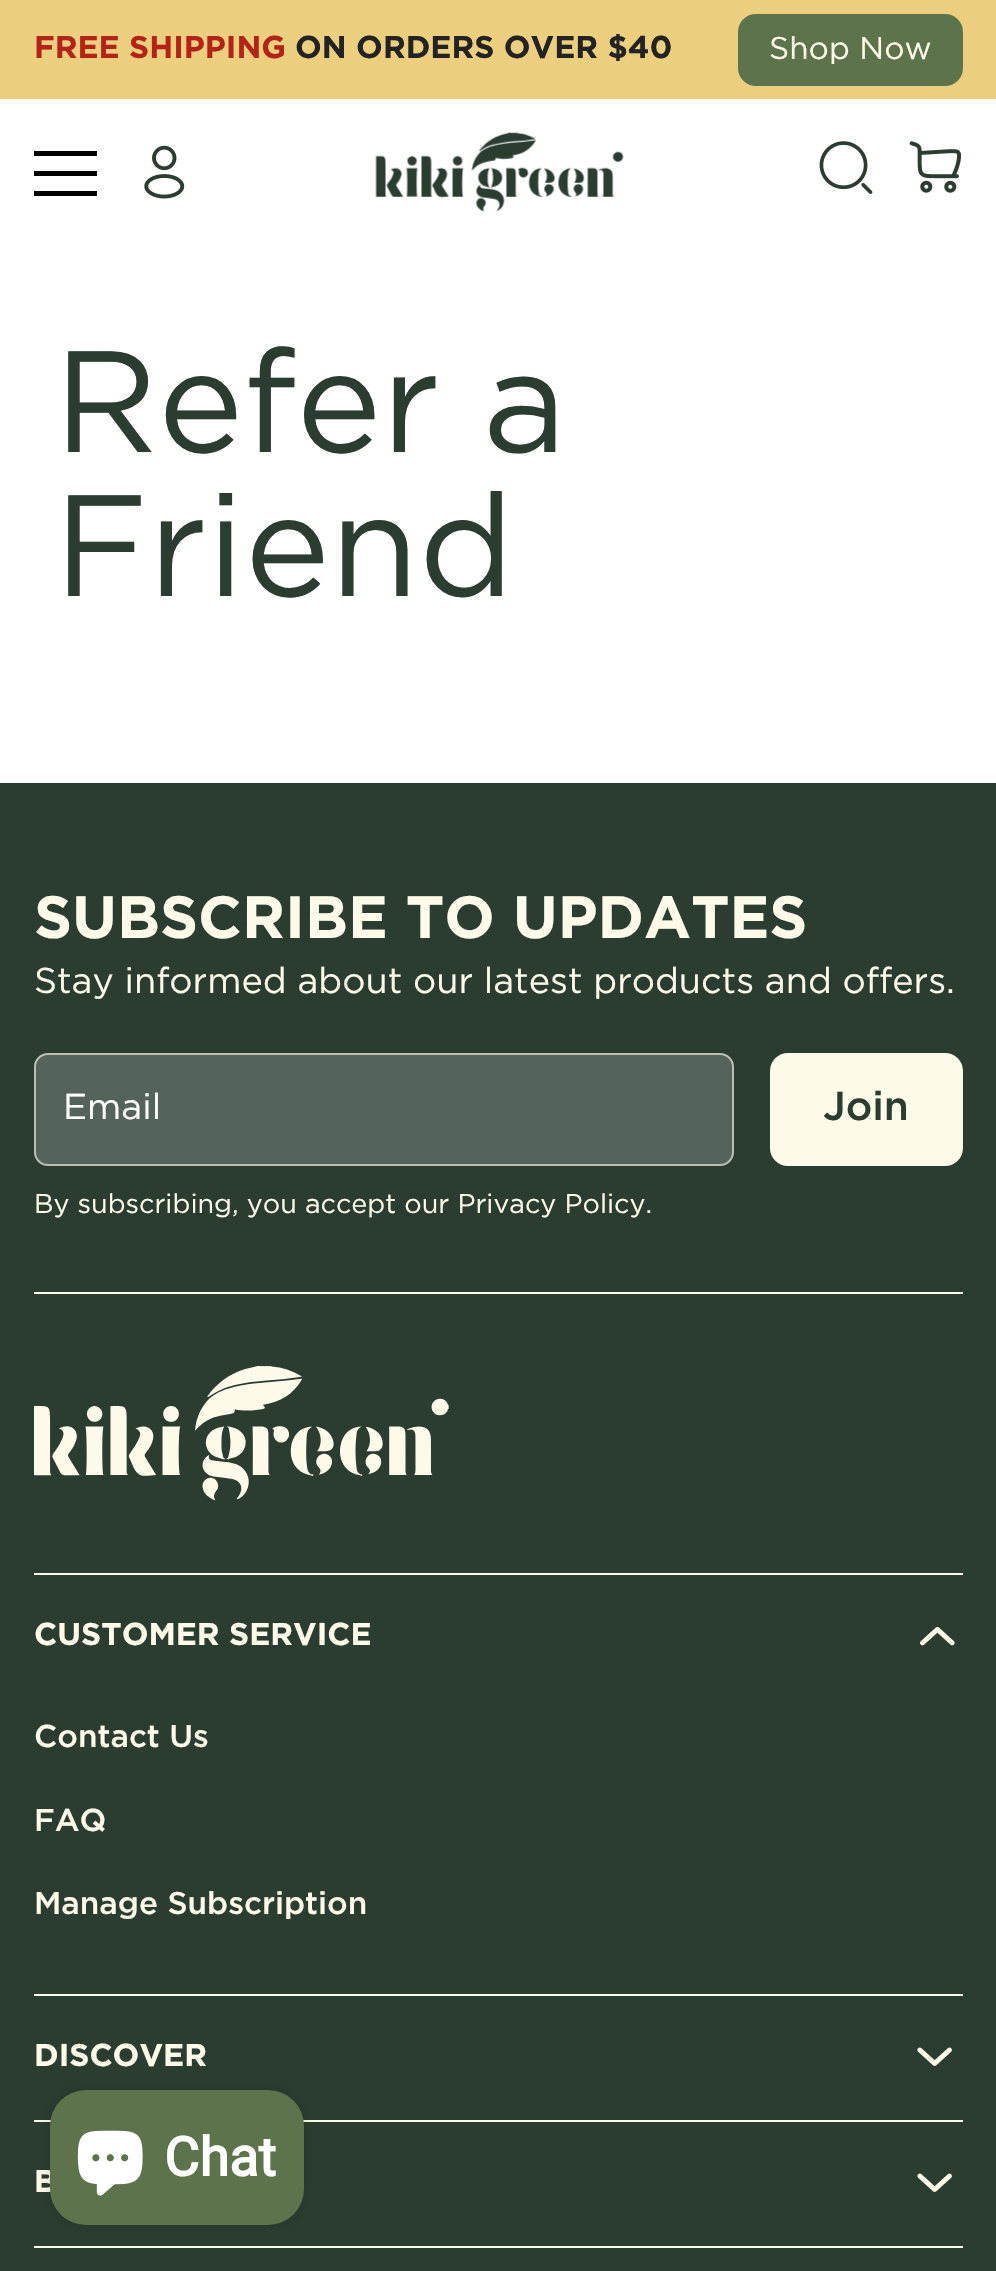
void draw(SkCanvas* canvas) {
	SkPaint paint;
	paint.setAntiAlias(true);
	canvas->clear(0xffffffff);
	paint.setColor(0xffeccf7e);
	canvas->drawRect(SkRect::MakeXYWH(0, 0, 996, 99), paint);
	SkFont f1(fontMgr->matchFamilyStyle("Gotham", SkFontStyle::Bold()), 31.5);
	f1.setSubpixel(true);
	paint.setColor(0xffb42318);
	canvas->drawString("FREE SHIPPING", 34, 58, f1, paint);
	paint.setColor(0xff232323);
	canvas->drawString("ON ORDERS OVER $40", 295, 58, f1, paint);
	paint.setColor(0xff5c734c);
	canvas->drawRoundRect(SkRect::MakeXYWH(738, 14, 225, 72), 18, 18, paint);
	SkFont f2(fontMgr->matchFamilyStyle("Gotham", SkFontStyle::Normal()), 31.5);
	f2.setSubpixel(true);
	paint.setColor(0xfffefae9);
	canvas->drawString("Shop Now", 769, 59, f2, paint);
	paint.setColor(0xff000000);
	canvas->drawRect(SkRect::MakeXYWH(34, 151, 63, 5), paint);
	canvas->drawRect(SkRect::MakeXYWH(34, 171, 63, 5), paint);
	canvas->drawRect(SkRect::MakeXYWH(34, 191, 63, 5), paint);
	canvas->drawImageRect(SkImages::DeferredFromEncodedData(SkData::MakeFromFileName("img1.png")), SkRect::MakeXYWH(144, 145, 41, 54), SkSamplingOptions());
	canvas->drawImageRect(SkImages::DeferredFromEncodedData(SkData::MakeFromFileName("img2.png")), SkRect::MakeXYWH(375, 132, 249, 80), SkSamplingOptions());
	canvas->drawImageRect(SkImages::DeferredFromEncodedData(SkData::MakeFromFileName("img3.png")), SkRect::MakeXYWH(819, 141, 54, 53), SkSamplingOptions());
	canvas->drawImageRect(SkImages::DeferredFromEncodedData(SkData::MakeFromFileName("img4.png")), SkRect::MakeXYWH(909, 141, 53, 52), SkSamplingOptions());
	SkFont f3(fontMgr->matchFamilyStyle("Gotham", SkFontStyle::Normal()), 144);
	f3.setSubpixel(true);
	paint.setColor(0xff2b3d31);
	canvas->drawString("Refer a", 54, 452, f3, paint);
	canvas->drawString("Friend", 54, 596, f3, paint);
	canvas->drawRect(SkRect::MakeXYWH(0, 783, 996, 1488), paint);
	paint.setColor(0xfffefae9);
	canvas->drawRect(SkRect::MakeXYWH(34, 1292, 929, 2), paint);
	SkFont f4(fontMgr->matchFamilyStyle("Gotham", SkFontStyle::Bold()), 59.5);
	f4.setSubpixel(true);
	canvas->drawString("SUBSCRIBE TO UPDATES", 34, 938, f4, paint);
	SkFont f5(fontMgr->matchFamilyStyle("Gotham", SkFontStyle::Normal()), 36);
	f5.setSubpixel(true);
	canvas->drawString("Stay informed about our latest products and offers.", 34, 993, f5, paint);
	paint.setColor(0xff55645a);
	canvas->drawRoundRect(SkRect::MakeXYWH(34, 1053, 700, 113), 14, 14, paint);
	paint.setStroke(true);
	paint.setStrokeWidth(2);
	paint.setColor(0x99fefae9);
	canvas->drawRoundRect(SkRect::MakeXYWH(35, 1054, 698, 111), 13, 13, paint);
	paint.setStroke(false);
	paint.setColor(0xffffffff);
	canvas->drawString("Email", 63, 1119, f5, paint);
	paint.setColor(0xfffefae9);
	canvas->drawRoundRect(SkRect::MakeXYWH(770, 1053, 193, 113), 18, 18, paint);
	SkFont f6(fontMgr->matchFamilyStyle("Gotham", SkFontStyle(500, SkFontStyle::kNormal_Width, SkFontStyle::kUpright_Slant)), 40.5);
	f6.setSubpixel(true);
	paint.setColor(0xff2b3d31);
	canvas->drawString("Join", 823, 1120, f6, paint);
	SkFont f7(fontMgr->matchFamilyStyle("Gotham", SkFontStyle::Normal()), 27);
	f7.setSubpixel(true);
	paint.setColor(0xfffefae9);
	canvas->drawString("By subscribing, you accept our Privacy Policy.", 34, 1213, f7, paint);
	canvas->drawImageRect(SkImages::DeferredFromEncodedData(SkData::MakeFromFileName("img5.png")), SkRect::MakeXYWH(34, 1366, 415, 135), SkSamplingOptions());
	canvas->drawRect(SkRect::MakeXYWH(34, 1573, 929, 2), paint);
	canvas->drawRect(SkRect::MakeXYWH(34, 1994, 929, 2), paint);
	canvas->drawString("CUSTOMER SERVICE", 34, 1645, f1, paint);
	canvas->drawImageRect(SkImages::DeferredFromEncodedData(SkData::MakeFromFileName("img6.png")), SkRect::MakeXYWH(920, 1627, 35, 19), SkSamplingOptions());
	SkFont f8(fontMgr->matchFamilyStyle("Gotham", SkFontStyle(500, SkFontStyle::kNormal_Width, SkFontStyle::kUpright_Slant)), 31.5);
	f8.setSubpixel(true);
	canvas->drawString("Contact Us", 34, 1747, f8, paint);
	canvas->drawString("FAQ", 34, 1831, f8, paint);
	canvas->drawString("Manage Subscription", 34, 1914, f8, paint);
	canvas->drawRect(SkRect::MakeXYWH(34, 2120, 929, 2), paint);
	canvas->drawString("DISCOVER", 34, 2066, f1, paint);
	canvas->drawImageRect(SkImages::DeferredFromEncodedData(SkData::MakeFromFileName("img7.png")), SkRect::MakeXYWH(917, 2047, 35, 19), SkSamplingOptions());
	canvas->drawRect(SkRect::MakeXYWH(34, 2246, 929, 2), paint);
	canvas->drawString("B", 34, 2192, f1, paint);
	canvas->drawImageRect(SkImages::DeferredFromEncodedData(SkData::MakeFromFileName("img7.png")), SkRect::MakeXYWH(917, 2173, 35, 19), SkSamplingOptions());
	paint.setColor(0x26000000);
	paint.setMaskFilter(SkMaskFilter::MakeBlur(kNormal_SkBlurStyle, 5.5));
	canvas->drawRoundRect(SkRect::MakeXYWH(50, 2090, 254, 135), 36, 36, paint);
	paint.setMaskFilter(nullptr);
	paint.setColor(0xff5c734c);
	canvas->drawRoundRect(SkRect::MakeXYWH(50, 2090, 254, 135), 36, 36, paint);
	canvas->drawImageRect(SkImages::DeferredFromEncodedData(SkData::MakeFromFileName("img8.png")), SkRect::MakeXYWH(77, 2130, 66, 66), SkSamplingOptions());
	SkFont f9(fontMgr->matchFamilyStyle("Roboto", SkFontStyle::Bold()), 54);
	f9.setSubpixel(true);
	paint.setColor(0xffffffff);
	canvas->drawString("Chat", 164, 2176, f9, paint);
}
